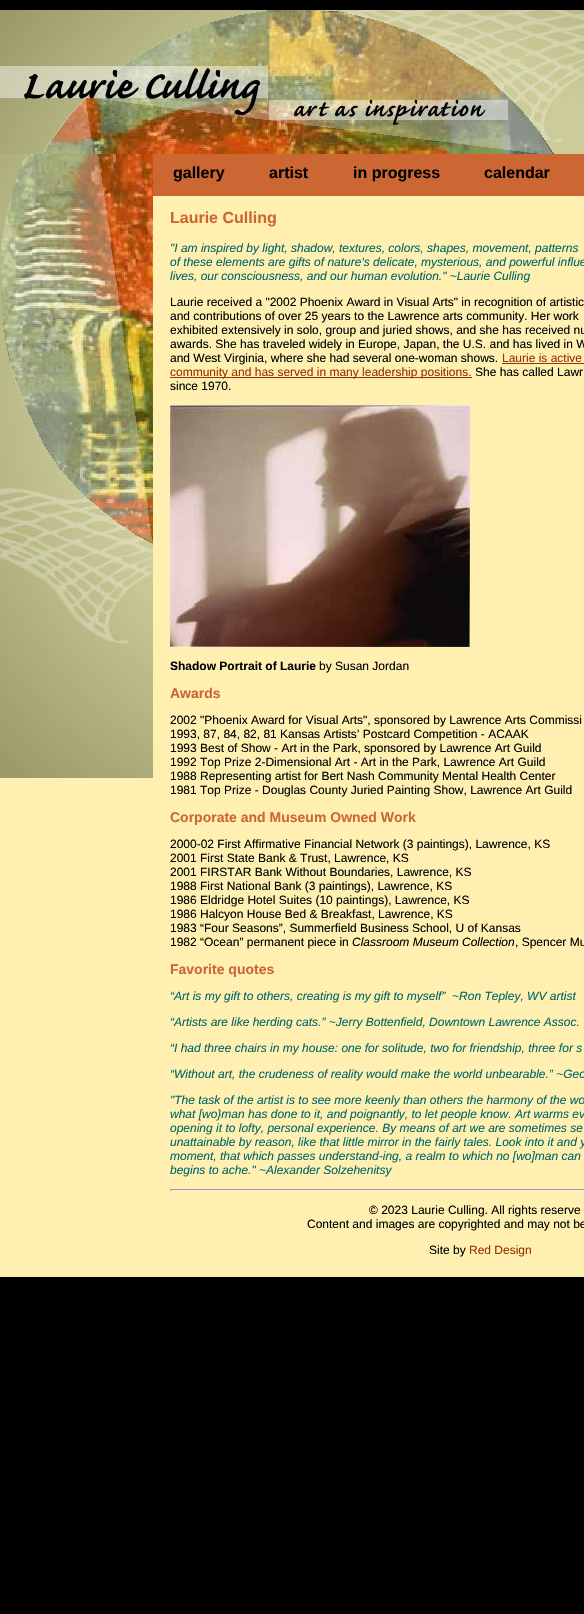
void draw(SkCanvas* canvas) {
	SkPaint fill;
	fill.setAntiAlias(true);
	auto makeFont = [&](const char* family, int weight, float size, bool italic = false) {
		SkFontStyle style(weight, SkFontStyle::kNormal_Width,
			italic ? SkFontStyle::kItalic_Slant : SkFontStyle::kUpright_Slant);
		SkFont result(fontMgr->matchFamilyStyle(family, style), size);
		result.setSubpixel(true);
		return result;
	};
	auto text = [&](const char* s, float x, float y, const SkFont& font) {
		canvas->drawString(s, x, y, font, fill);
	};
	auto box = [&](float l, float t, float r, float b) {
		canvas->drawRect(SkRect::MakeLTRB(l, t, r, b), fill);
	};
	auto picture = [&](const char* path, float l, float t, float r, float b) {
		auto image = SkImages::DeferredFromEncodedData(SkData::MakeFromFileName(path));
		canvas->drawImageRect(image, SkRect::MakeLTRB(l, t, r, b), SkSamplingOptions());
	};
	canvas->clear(0xFF000000);
	picture("image0.png", 0, 10, 552, 154);
	picture("image1.png", 552, 10, 584, 154);
	fill.setColor(0xFFFFF0B1);
	box(0, 196, 584, 1277);
	picture("image2.png", 0, 154, 153, 778);
	fill.setColor(0xFFCC6633);
	box(153, 154, 584, 196);
	fill.setColor(0xFF993300);
	box(502, 363, 584, 364);
	box(170, 377, 472, 378);
	picture("image3.png", 170, 405, 470, 647);
	fill.setColor(0xFF9F9F9F);
	box(170, 1189, 584, 1190);
	fill.setColor(0xFFEEEEEE);
	box(170, 1190, 584, 1191);
	fill.setColor(0xFF9F9F9F);
	box(170, 1189, 171, 1191);
	auto font1 = makeFont("Liberation Sans", 700, 16);
	fill.setColor(0xFF000000);
	text("gallery", 173, 178, font1);
	text("artist", 269, 178, font1);
	text("in progress", 353, 178, font1);
	text("calendar", 484, 178, font1);
	fill.setColor(0xFFCC6633);
	text("Laurie Culling", 170, 223, font1);
	auto font2 = makeFont("Liberation Sans", 400, 12, true);
	fill.setColor(0xFF006666);
	text("\"I am inspired by light, shadow, textures, colors, shapes, movement, patterns", 170, 252, font2);
	text("of these elements are gifts of nature's delicate, mysterious, and powerful influe", 170, 266, font2);
	text("lives, our consciousness, and our human evolution.\" ~Laurie Culling", 170, 280, font2);
	auto font3 = makeFont("Liberation Sans", 400, 12);
	fill.setColor(0xFF000000);
	text("Laurie received a \"2002 Phoenix Award in Visual Arts\" in recognition of artistic", 170, 306, font3);
	text("and contributions of over 25 years to the Lawrence arts community. Her work", 170, 320, font3);
	text("exhibited extensively in solo, group and juried shows, and she has received nu", 170, 334, font3);
	text("awards. She has traveled widely in Europe, Japan, the U.S. and has lived in W", 170, 348, font3);
	text("and West Virginia, where she had several one-woman shows.", 170, 362, font3);
	fill.setColor(0xFF993300);
	text("Laurie is active", 502, 362, font3);
	text("community and has served in many leadership positions.", 170, 376, font3);
	fill.setColor(0xFF000000);
	text("She has called Lawr", 475, 376, font3);
	text("since 1970.", 170, 390, font3);
	auto font4 = makeFont("Liberation Sans", 700, 12);
	text("Shadow Portrait of Laurie", 170, 670, font4);
	text("by Susan Jordan", 319, 670, font3);
	auto font5 = makeFont("Liberation Sans", 700, 14);
	fill.setColor(0xFFCC6633);
	text("Awards", 170, 698, font5);
	fill.setColor(0xFF000000);
	text("2002 \"Phoenix Award for Visual Arts\", sponsored by Lawrence Arts Commissi", 170, 724, font3);
	text("1993, 87, 84, 82, 81 Kansas Artists’ Postcard Competition - ACAAK", 170, 738, font3);
	text("1993 Best of Show - Art in the Park, sponsored by Lawrence Art Guild", 170, 752, font3);
	text("1992 Top Prize 2-Dimensional Art - Art in the Park, Lawrence Art Guild", 170, 766, font3);
	text("1988 Representing artist for Bert Nash Community Mental Health Center", 170, 780, font3);
	text("1981 Top Prize - Douglas County Juried Painting Show, Lawrence Art Guild", 170, 794, font3);
	fill.setColor(0xFFCC6633);
	text("Corporate and Museum Owned Work", 170, 822, font5);
	fill.setColor(0xFF000000);
	text("2000-02 First Affirmative Financial Network (3 paintings), Lawrence, KS", 170, 848, font3);
	text("2001 First State Bank & Trust, Lawrence, KS", 170, 862, font3);
	text("2001 FIRSTAR Bank Without Boundaries, Lawrence, KS", 170, 876, font3);
	text("1988 First National Bank (3 paintings), Lawrence, KS", 170, 890, font3);
	text("1986 Eldridge Hotel Suites (10 paintings), Lawrence, KS", 170, 904, font3);
	text("1986 Halcyon House Bed & Breakfast, Lawrence, KS", 170, 918, font3);
	text("1983 “Four Seasons”, Summerfield Business School, U of Kansas", 170, 932, font3);
	text("1982 “Ocean” permanent piece in", 170, 946, font3);
	text("Classroom Museum Collection", 352, 946, font2);
	text(", Spencer Mu", 515, 946, font3);
	fill.setColor(0xFFCC6633);
	text("Favorite quotes", 170, 974, font5);
	fill.setColor(0xFF006666);
	text("“Art is my gift to others, creating is my gift to myself”  ~Ron Tepley, WV artist", 170, 1000, font2);
	text("“Artists are like herding cats.” ~Jerry Bottenfield, Downtown Lawrence Assoc.", 170, 1026, font2);
	text("“I had three chairs in my house: one for solitude, two for friendship, three for s", 170, 1052, font2);
	text("“Without art, the crudeness of reality would make the world unbearable.” ~Geo", 170, 1078, font2);
	text("\"The task of the artist is to see more keenly than others the harmony of the wo", 170, 1104, font2);
	text("what [wo}man has done to it, and poignantly, to let people know. Art warms ev", 170, 1118, font2);
	text("opening it to lofty, personal experience. By means of art we are sometimes se", 170, 1132, font2);
	text("unattainable by reason, like that little mirror in the fairly tales. Look into it and y", 170, 1146, font2);
	text("moment, that which passes understand-ing, a realm to which no [wo]man can", 170, 1160, font2);
	text("begins to ache.\" ~Alexander Solzehenitsy", 170, 1174, font2);
	fill.setColor(0xFF000000);
	text("© 2023 Laurie Culling. All rights reserve", 369, 1214, font3);
	text("Content and images are copyrighted and may not be", 307, 1228, font3);
	text("Site by", 429, 1254, font3);
	fill.setColor(0xFF993300);
	text("Red Design", 469, 1254, font3);
}
